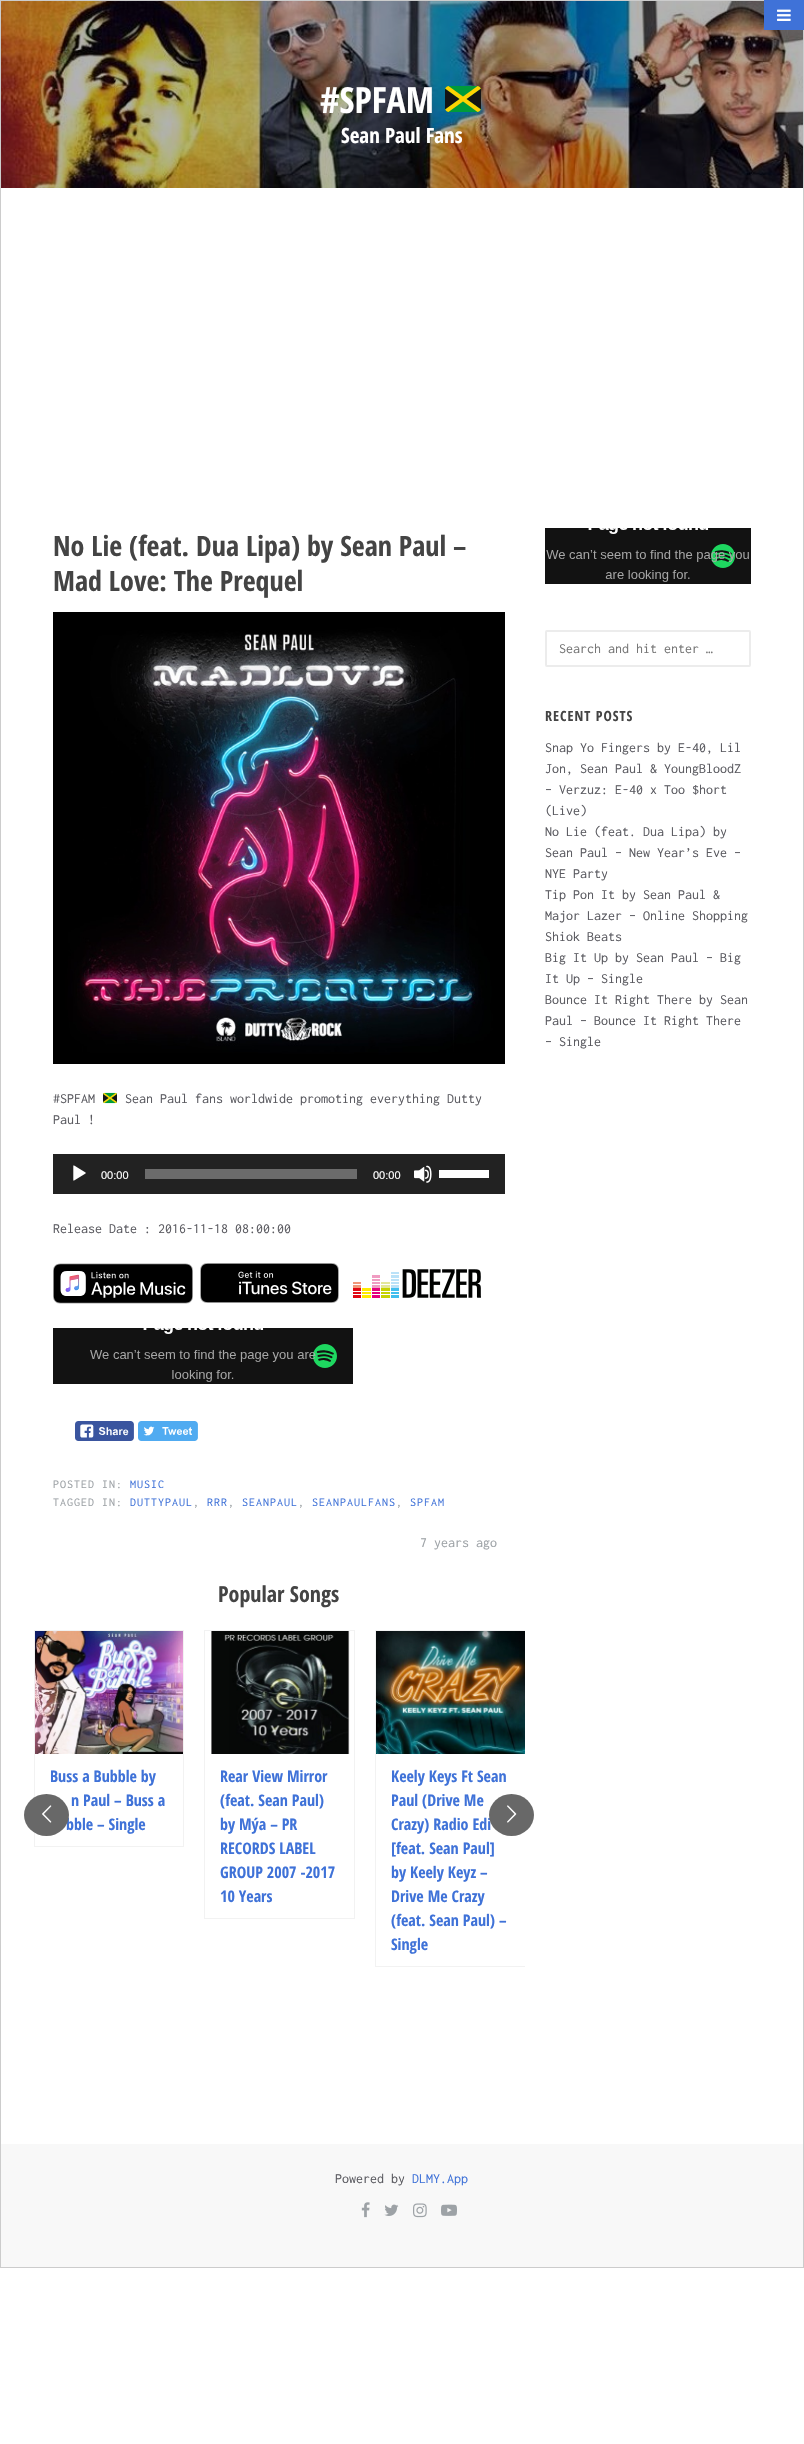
void draw(SkCanvas* canvas) {
	SkPaint fill;
	fill.setAntiAlias(true);
	auto makeFont = [&](const char* family, int weight, float size, bool italic = false) {
		SkFontStyle style(weight, SkFontStyle::kNormal_Width,
			italic ? SkFontStyle::kItalic_Slant : SkFontStyle::kUpright_Slant);
		SkFont result(fontMgr->matchFamilyStyle(family, style), size);
		result.setSubpixel(true);
		return result;
	};
	auto text = [&](const char* s, float x, float y, const SkFont& font) {
		canvas->drawString(s, x, y, font, fill);
	};
	auto spacedText = [&](const char* s, float x, float y, const SkFont& font, const SkPaint& ink, float letter, float word) {
		std::vector<SkGlyphID> glyphs(font.countText(s, strlen(s), SkTextEncoding::kUTF8));
		std::vector<float> xs(glyphs.size());
		font.textToGlyphs(s, strlen(s), SkTextEncoding::kUTF8, glyphs);
		font.getXPos(glyphs, xs, x);
		float extra = 0;
		for (size_t i = 0; i < glyphs.size(); i++) {
			xs[i] += extra;
			extra += letter + word * (glyphs[i] == font.unicharToGlyph(' '));
		}
		canvas->drawTextBlob(SkTextBlob::MakeFromPosHGlyphs(glyphs, xs, y, font), 0, 0, ink);
	};
	auto box = [&](float l, float t, float r, float b) {
		canvas->drawRect(SkRect::MakeLTRB(l, t, r, b), fill);
	};
	auto picture = [&](const char* path, float l, float t, float r, float b) {
		auto image = SkImages::DeferredFromEncodedData(SkData::MakeFromFileName(path));
		canvas->drawImageRect(image, SkRect::MakeLTRB(l, t, r, b), SkSamplingOptions());
	};
	canvas->clear(0xFFFFFFFF);
	fill.setStyle(SkPaint::kStroke_Style);
	fill.setStrokeWidth(1);
	fill.setColor(0xFFCCCCCC);
	canvas->drawRect(SkRect::MakeLTRB(0.5f, 0.5f, 803.5f, 2267.5f), fill);
	picture("image1.png", 1, 1, 803, 188);
	fill.setStyle(SkPaint::kFill_Style);
	fill.setColor(0xFF3F72D8);
	box(764, 0, 804, 30);
	picture("image0.png", 777, 9, 791, 21);
	picture("image2.png", 445, 86, 481, 112);
	picture("image3.png", 53, 612, 505, 1064);
	picture("image4.png", 103, 1092, 117, 1104);
	fill.setColor(0xFF222222);
	box(53, 1154, 505, 1194);
	picture("image5.png", 73, 1165, 86, 1181);
	fill.setColor(0xFF6B6B6B);
	box(145, 1169, 357, 1179);
	picture("image6.png", 414, 1165, 432, 1183);
	fill.setColor(0xFFFFFFFF);
	box(439, 1170, 489, 1178);
	picture("image7.png", 53, 1263, 193, 1304);
	picture("image8.png", 200, 1263, 339, 1303);
	picture("image9.png", 353, 1269, 481, 1298);
	picture("image10.png", 53, 1328, 353, 1384);
	picture("image11.png", 75, 1421, 134, 1441);
	picture("image12.png", 138, 1421, 198, 1441);
	fill.setStyle(SkPaint::kStroke_Style);
	fill.setColor(0xFFF2F2F2);
	canvas->drawRect(SkRect::MakeLTRB(34.5f, 1630.5f, 183.5f, 1846.5f), fill);
	picture("image14.png", 35, 1631, 183, 1754);
	canvas->drawRect(SkRect::MakeLTRB(204.5f, 1630.5f, 354.5f, 1918.5f), fill);
	picture("image15.png", 211, 1631, 350, 1754);
	canvas->save();
	canvas->clipRect(SkRect::MakeLTRB(33, 1630, 525, 2039));
	canvas->drawRect(SkRect::MakeLTRB(375.5f, 1630.5f, 525.5f, 1966.5f), fill);
	canvas->restore();
	picture("image16.png", 376, 1631, 525, 1754);
	picture("image18.png", 545, 528, 751, 584);
	fill.setStrokeWidth(2);
	fill.setColor(0xFFECECEC);
	canvas->drawRoundRect(SkRect::MakeLTRB(546, 631, 750, 666), 1, 1, fill);
	fill.setStyle(SkPaint::kFill_Style);
	fill.setColor(0xFFF8F8F8);
	box(1, 2144, 803, 2267);
	picture("image19.png", 361, 2202, 370, 2218);
	picture("image20.png", 384, 2204, 399, 2216);
	picture("image21.png", 413, 2203, 427, 2218);
	picture("image22.png", 441, 2204, 457, 2216);
	auto font1 = makeFont("Open Sans Condensed", 700, 36);
	fill.setColor(0xFFFFFFFF);
	text("#SPFAM", 320, 113, font1);
	auto font2 = makeFont("Open Sans Condensed", 700, 21);
	text("Sean Paul Fans", 341, 143, font2);
	auto font3 = makeFont("Open Sans Condensed", 700, 28);
	fill.setColor(0xFF444444);
	text("No Lie (feat. Dua Lipa) by Sean Paul –", 53, 556, font3);
	text("Mad Love: The Prequel", 53, 591, font3);
	auto font4 = makeFont("Inconsolata", 400, 14);
	fill.setColor(0xFF5A5A60);
	text("#SPFAM", 53, 1103, font4);
	text("Sean Paul fans worldwide promoting everything Dutty", 125, 1103, font4);
	text("Paul !", 53, 1124, font4);
	auto font5 = makeFont("Liberation Sans", 400, 11);
	fill.setColor(0xFFFFFFFF);
	text("00:00", 101, 1179, font5);
	text("00:00", 373, 1179, font5);
	fill.setColor(0xFF5A5A60);
	text("Release Date : 2016-11-18 08:00:00", 53, 1233, font4);
	auto font6 = makeFont("Inconsolata", 400, 12);
	fill.setColor(0xFF9DA2A6);
	spacedText("POSTED IN:", 53, 1488, font6, fill, 1, 0);
	fill.setColor(0xFF3F72D8);
	spacedText("MUSIC", 130, 1488, font6, fill, 1, 0);
	fill.setColor(0xFF9DA2A6);
	spacedText("TAGGED IN:", 53, 1506, font6, fill, 1, 0);
	fill.setColor(0xFF3F72D8);
	spacedText("DUTTYPAUL", 130, 1506, font6, fill, 1, 0);
	fill.setColor(0xFF9DA2A6);
	spacedText(",", 193, 1506, font6, fill, 1, 0);
	fill.setColor(0xFF3F72D8);
	spacedText("RRR", 207, 1506, font6, fill, 1, 0);
	fill.setColor(0xFF9DA2A6);
	spacedText(",", 228, 1506, font6, fill, 1, 0);
	fill.setColor(0xFF3F72D8);
	spacedText("SEANPAUL", 242, 1506, font6, fill, 1, 0);
	fill.setColor(0xFF9DA2A6);
	spacedText(",", 298, 1506, font6, fill, 1, 0);
	fill.setColor(0xFF3F72D8);
	spacedText("SEANPAULFANS", 312, 1506, font6, fill, 1, 0);
	fill.setColor(0xFF9DA2A6);
	spacedText(",", 396, 1506, font6, fill, 1, 0);
	fill.setColor(0xFF3F72D8);
	spacedText("SPFAM", 410, 1506, font6, fill, 1, 0);
	fill.setColor(0xFF9DA2A6);
	text("7 years ago", 420, 1547, font4);
	auto font7 = makeFont("Open Sans Condensed", 700, 22);
	fill.setColor(0xFF444444);
	text("Popular Songs", 218, 1602, font7);
	auto font8 = makeFont("Open Sans Condensed", 700, 16);
	fill.setColor(0xFF3F72D8);
	text("Buss a Bubble by", 50, 1782, font8);
	text("n Paul – Buss a", 71, 1806, font8);
	text("bble – Single", 66, 1830, font8);
	fill.setColor(0xFF686868);
	canvas->drawOval(SkRect::MakeLTRB(24, 1794, 69, 1836), fill);
	picture("image13.png", 42, 1805, 52, 1823);
	fill.setColor(0xFF3F72D8);
	text("Rear View Mirror", 220, 1782, font8);
	text("(feat. Sean Paul)", 220, 1806, font8);
	text("by Mýa – PR", 220, 1830, font8);
	text("RECORDS LABEL", 220, 1854, font8);
	text("GROUP 2007 -2017", 220, 1878, font8);
	text("10 Years", 220, 1902, font8);
	text("Keely Keys Ft Sean", 391, 1782, font8);
	text("Paul (Drive Me", 391, 1806, font8);
	text("Crazy) Radio Edi", 391, 1830, font8);
	text("[feat. Sean Paul]", 391, 1854, font8);
	text("by Keely Keyz –", 391, 1878, font8);
	text("Drive Me Crazy", 391, 1902, font8);
	text("(feat. Sean Paul) –", 391, 1926, font8);
	text("Single", 391, 1950, font8);
	fill.setColor(0xFF686868);
	canvas->drawOval(SkRect::MakeLTRB(489, 1794, 534, 1836), fill);
	picture("image17.png", 507, 1805, 517, 1823);
	fill.setColor(0xFF757575);
	text("Search and hit enter …", 559, 653, font4);
	auto font9 = makeFont("Open Sans Condensed", 700, 14);
	fill.setColor(0xFF444444);
	spacedText("RECENT POSTS", 545, 721, font9, fill, 1, 0);
	fill.setColor(0xFF5A5A60);
	text("Snap Yo Fingers by E-40, Lil", 545, 752, font4);
	text("Jon, Sean Paul & YoungBloodZ", 545, 773, font4);
	text("– Verzuz: E-40 x Too $hort", 545, 794, font4);
	text("(Live)", 545, 815, font4);
	text("No Lie (feat. Dua Lipa) by", 545, 836, font4);
	text("Sean Paul – New Year’s Eve –", 545, 857, font4);
	text("NYE Party", 545, 878, font4);
	text("Tip Pon It by Sean Paul &", 545, 899, font4);
	text("Major Lazer – Online Shopping", 545, 920, font4);
	text("Shiok Beats", 545, 941, font4);
	text("Big It Up by Sean Paul – Big", 545, 962, font4);
	text("It Up – Single", 545, 983, font4);
	text("Bounce It Right There by Sean", 545, 1004, font4);
	text("Paul – Bounce It Right There", 545, 1025, font4);
	text("– Single", 545, 1046, font4);
	text("Powered by", 335, 2183, font4);
	fill.setColor(0xFF3F72D8);
	text("DLMY.App", 412, 2183, font4);
}
